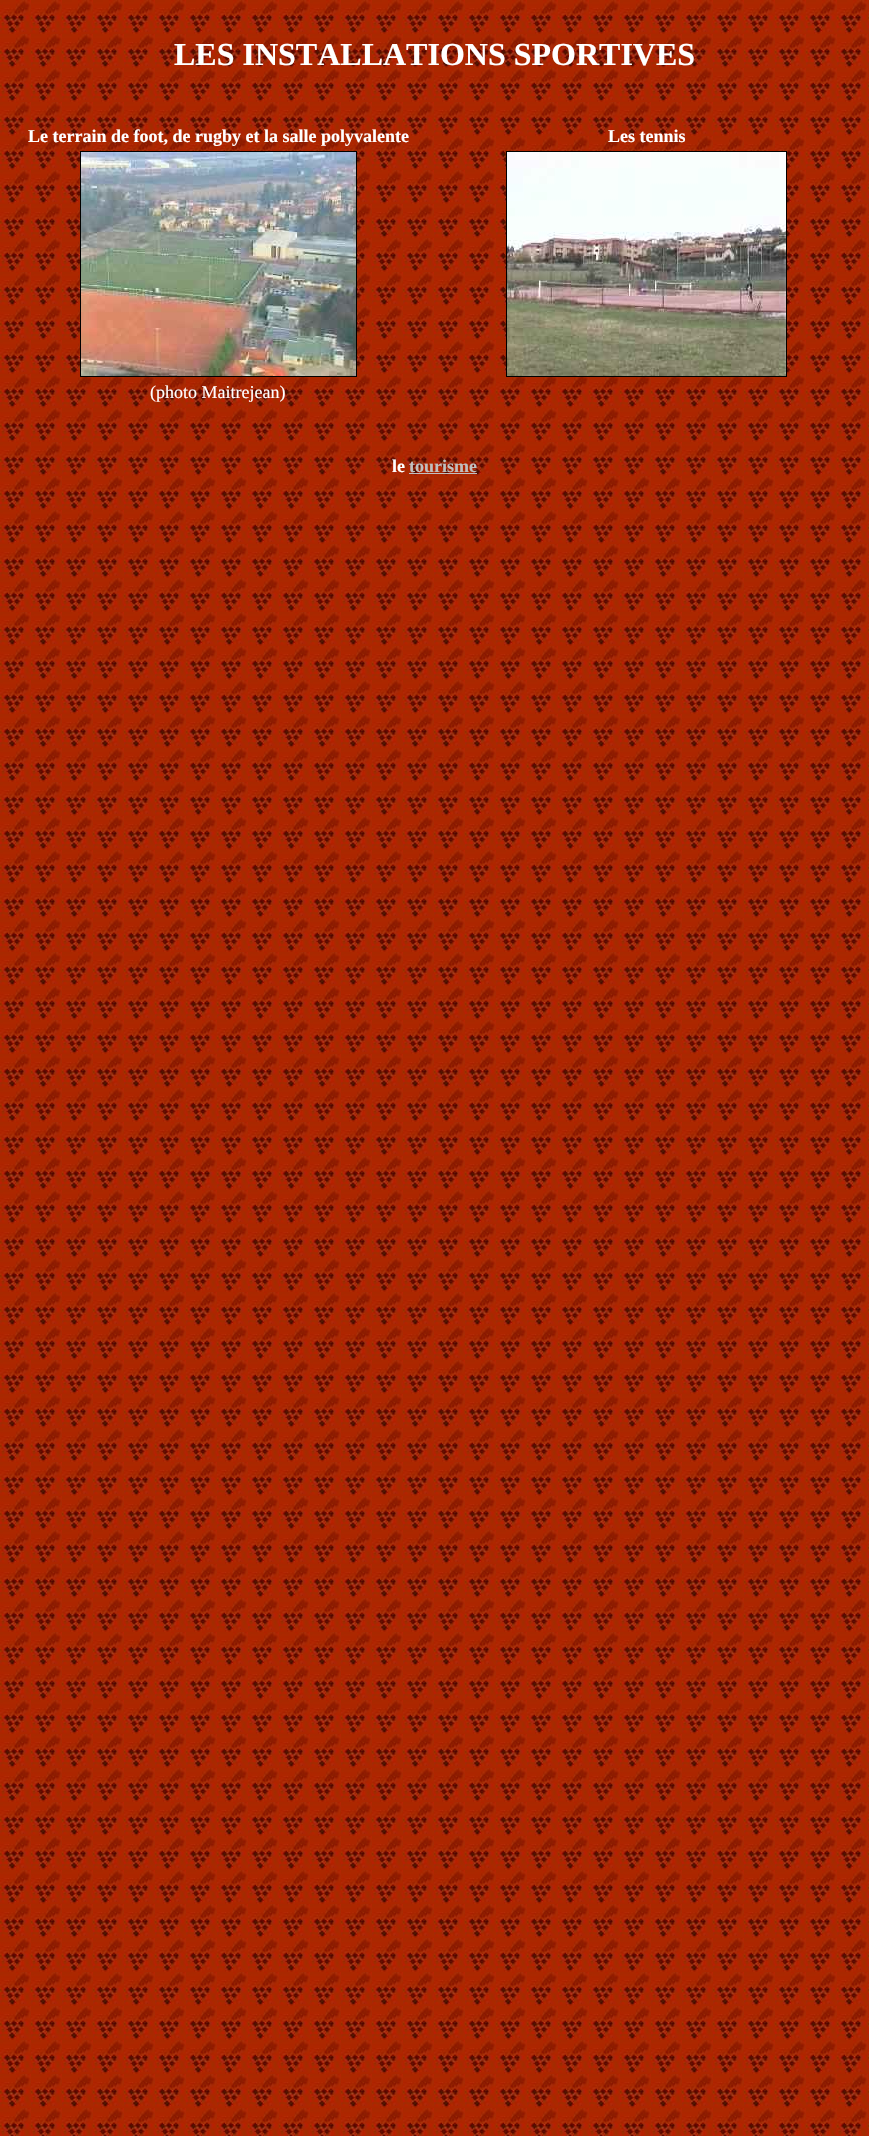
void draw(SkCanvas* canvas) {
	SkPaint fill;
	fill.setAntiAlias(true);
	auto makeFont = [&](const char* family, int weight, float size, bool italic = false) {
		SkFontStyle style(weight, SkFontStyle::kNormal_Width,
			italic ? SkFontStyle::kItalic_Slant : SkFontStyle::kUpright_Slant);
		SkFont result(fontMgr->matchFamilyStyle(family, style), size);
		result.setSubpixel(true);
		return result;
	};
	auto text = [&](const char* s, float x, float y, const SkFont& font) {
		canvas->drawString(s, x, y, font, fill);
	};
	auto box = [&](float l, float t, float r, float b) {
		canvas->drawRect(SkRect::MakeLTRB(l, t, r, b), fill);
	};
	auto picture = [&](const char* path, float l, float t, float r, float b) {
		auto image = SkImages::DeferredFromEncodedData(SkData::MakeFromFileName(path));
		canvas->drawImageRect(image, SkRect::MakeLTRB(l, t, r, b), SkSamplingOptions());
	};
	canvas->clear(0xFFFFFFFF);
	picture("image0.png", 0, 0, 869, 2136);
	fill.setStyle(SkPaint::kStroke_Style);
	fill.setStrokeWidth(1);
	fill.setColor(0xFF000000);
	canvas->drawRect(SkRect::MakeLTRB(506.5f, 151.5f, 786.5f, 376.5f), fill);
	picture("image1.png", 507, 152, 786, 376);
	canvas->drawRect(SkRect::MakeLTRB(80.5f, 151.5f, 356.5f, 376.5f), fill);
	picture("image2.png", 81, 152, 356, 376);
	fill.setStyle(SkPaint::kFill_Style);
	fill.setColor(0xFFC0C0C0);
	box(409, 473, 477, 474);
	auto font1 = makeFont("Liberation Serif", 700, 32);
	fill.setColor(0xFFFFFFFF);
	text("LES INSTALLATIONS SPORTIVES", 174, 65, font1);
	auto font2 = makeFont("Liberation Serif", 700, 18);
	text("Le terrain de foot, de rugby et la salle polyvalente", 28, 142, font2);
	text("Les tennis", 608, 142, font2);
	auto font3 = makeFont("Liberation Serif", 400, 18);
	text("(photo Maitrejean)", 150, 398, font3);
	text("le", 392, 472, font2);
	fill.setColor(0xFFC0C0C0);
	text("tourisme", 409, 472, font2);
}
